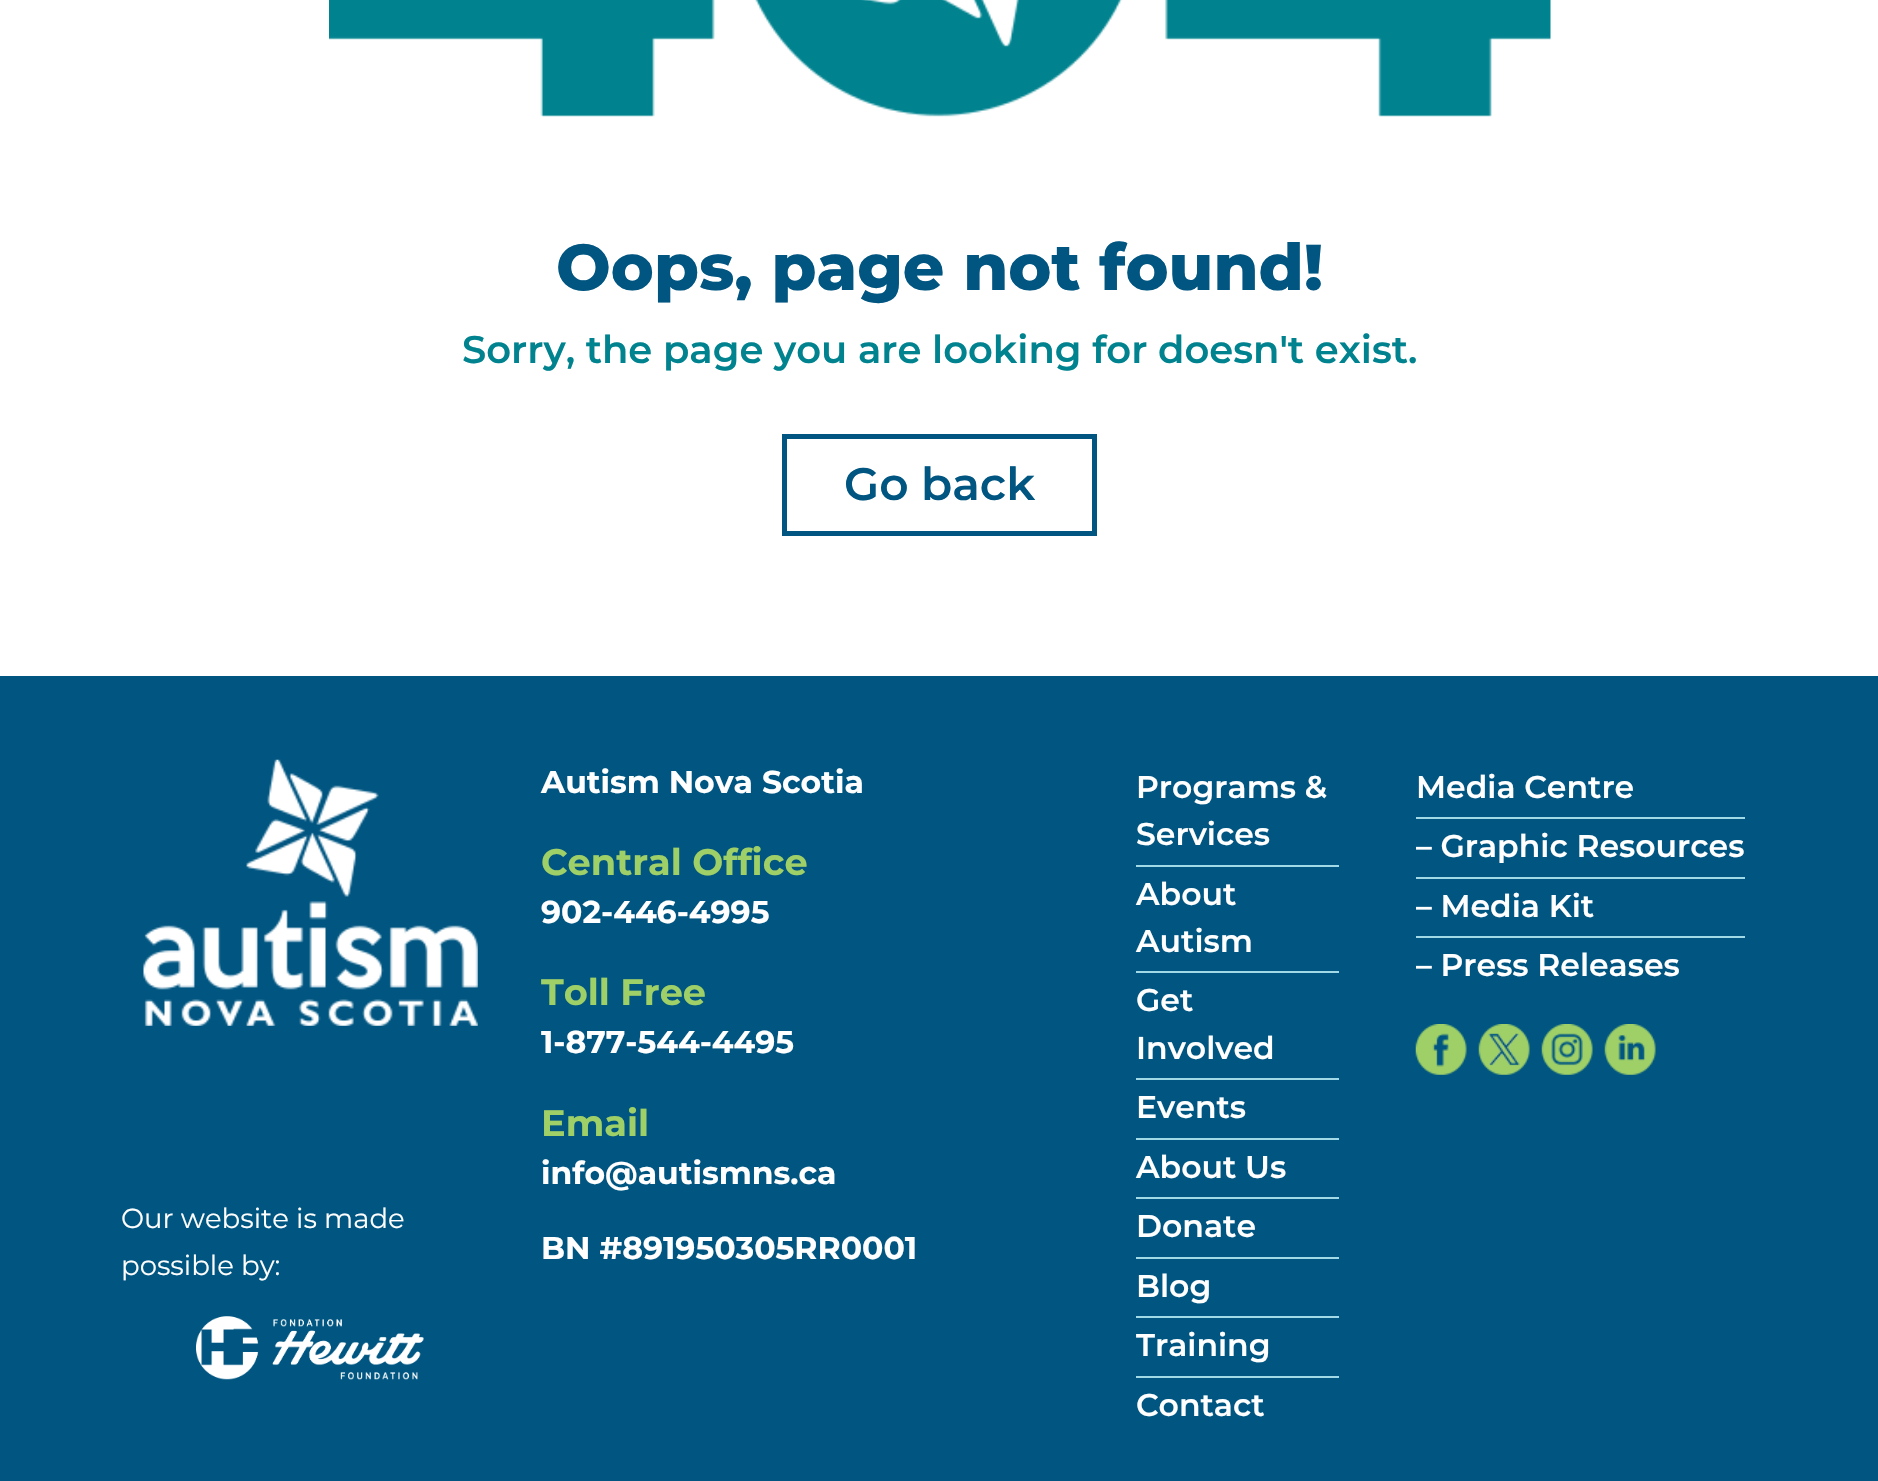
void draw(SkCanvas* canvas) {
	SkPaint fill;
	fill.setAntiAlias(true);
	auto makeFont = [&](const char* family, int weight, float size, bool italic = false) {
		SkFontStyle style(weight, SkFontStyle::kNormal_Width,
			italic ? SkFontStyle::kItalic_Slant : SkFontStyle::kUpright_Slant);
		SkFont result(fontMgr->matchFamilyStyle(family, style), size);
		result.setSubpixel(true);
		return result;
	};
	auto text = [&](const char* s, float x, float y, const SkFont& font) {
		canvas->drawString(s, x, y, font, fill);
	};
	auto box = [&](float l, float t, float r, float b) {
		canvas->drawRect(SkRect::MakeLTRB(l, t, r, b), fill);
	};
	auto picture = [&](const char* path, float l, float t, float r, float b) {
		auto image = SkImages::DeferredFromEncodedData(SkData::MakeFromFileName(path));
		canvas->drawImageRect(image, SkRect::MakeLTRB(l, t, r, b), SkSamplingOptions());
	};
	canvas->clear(0xFFFFFFFF);
	picture("image0.png", 329, 0, 1551, 117);
	fill.setStyle(SkPaint::kStroke_Style);
	fill.setStrokeWidth(5);
	fill.setColor(0xFF005581);
	canvas->drawRect(SkRect::MakeLTRB(784.5f, 436.5f, 1094.5f, 533.5f), fill);
	fill.setStyle(SkPaint::kFill_Style);
	box(0, 676, 1878, 1481);
	picture("image1.png", 143, 759, 478, 1026);
	picture("image2.png", 196, 1316, 424, 1380);
	fill.setColor(0xFFA1D9E7);
	box(1136, 865, 1339, 867);
	box(1136, 971, 1339, 973);
	box(1136, 1078, 1339, 1080);
	box(1136, 1138, 1339, 1140);
	box(1136, 1197, 1339, 1199);
	box(1136, 1257, 1339, 1259);
	box(1136, 1316, 1339, 1318);
	box(1136, 1376, 1339, 1378);
	box(1416, 817, 1745, 819);
	box(1416, 877, 1745, 879);
	box(1416, 936, 1745, 938);
	picture("image3.png", 1415, 1024, 1467, 1075);
	picture("image4.png", 1478, 1024, 1530, 1075);
	picture("image5.png", 1541, 1024, 1593, 1075);
	picture("image6.png", 1604, 1024, 1656, 1075);
	auto font1 = makeFont("Montserrat", 800, 64.75f);
	fill.setColor(0xFF005581);
	text("Oops, page not found!", 556, 290, font1);
	auto font2 = makeFont("Montserrat", 600, 38.5f);
	fill.setColor(0xFF00838F);
	text("Sorry, the page you are looking for doesn't exist.", 462, 363, font2);
	auto font3 = makeFont("Montserrat", 600, 45.5f);
	fill.setColor(0xFF005581);
	text("Go back", 844, 500, font3);
	auto font4 = makeFont("Montserrat", 400, 27.5f);
	fill.setColor(0xFFFFFFFF);
	text("Our website is made", 121, 1228, font4);
	text("possible by:", 121, 1275, font4);
	auto font5 = makeFont("Montserrat", 700, 31.5f);
	text("Autism Nova Scotia", 541, 793, font5);
	auto font6 = makeFont("Montserrat", 700, 36.75f);
	fill.setColor(0xFF9FCF67);
	text("Central Office", 541, 875, font6);
	fill.setColor(0xFFFFFFFF);
	text("902-446-4995", 541, 923, font5);
	fill.setColor(0xFF9FCF67);
	text("Toll Free", 541, 1005, font6);
	fill.setColor(0xFFFFFFFF);
	text("1-877-544-4495", 541, 1053, font5);
	fill.setColor(0xFF9FCF67);
	text("Email", 541, 1136, font6);
	fill.setColor(0xFFFFFFFF);
	text("info@autismns.ca", 541, 1184, font5);
	text("BN #891950305RR0001", 541, 1259, font5);
	auto font7 = makeFont("Montserrat", 600, 31.5f);
	text("Programs &", 1136, 798, font7);
	text("Services", 1136, 845, font7);
	text("About", 1136, 905, font7);
	text("Autism", 1136, 952, font7);
	text("Get", 1136, 1011, font7);
	text("Involved", 1136, 1059, font7);
	text("Events", 1136, 1118, font7);
	text("About Us", 1136, 1178, font7);
	text("Donate", 1136, 1237, font7);
	text("Blog", 1136, 1297, font7);
	text("Training", 1136, 1356, font7);
	text("Contact", 1136, 1416, font7);
	text("Media Centre", 1416, 798, font7);
	text("– Graphic Resources", 1416, 857, font7);
	text("– Media Kit", 1416, 917, font7);
	text("– Press Releases", 1416, 976, font7);
}
